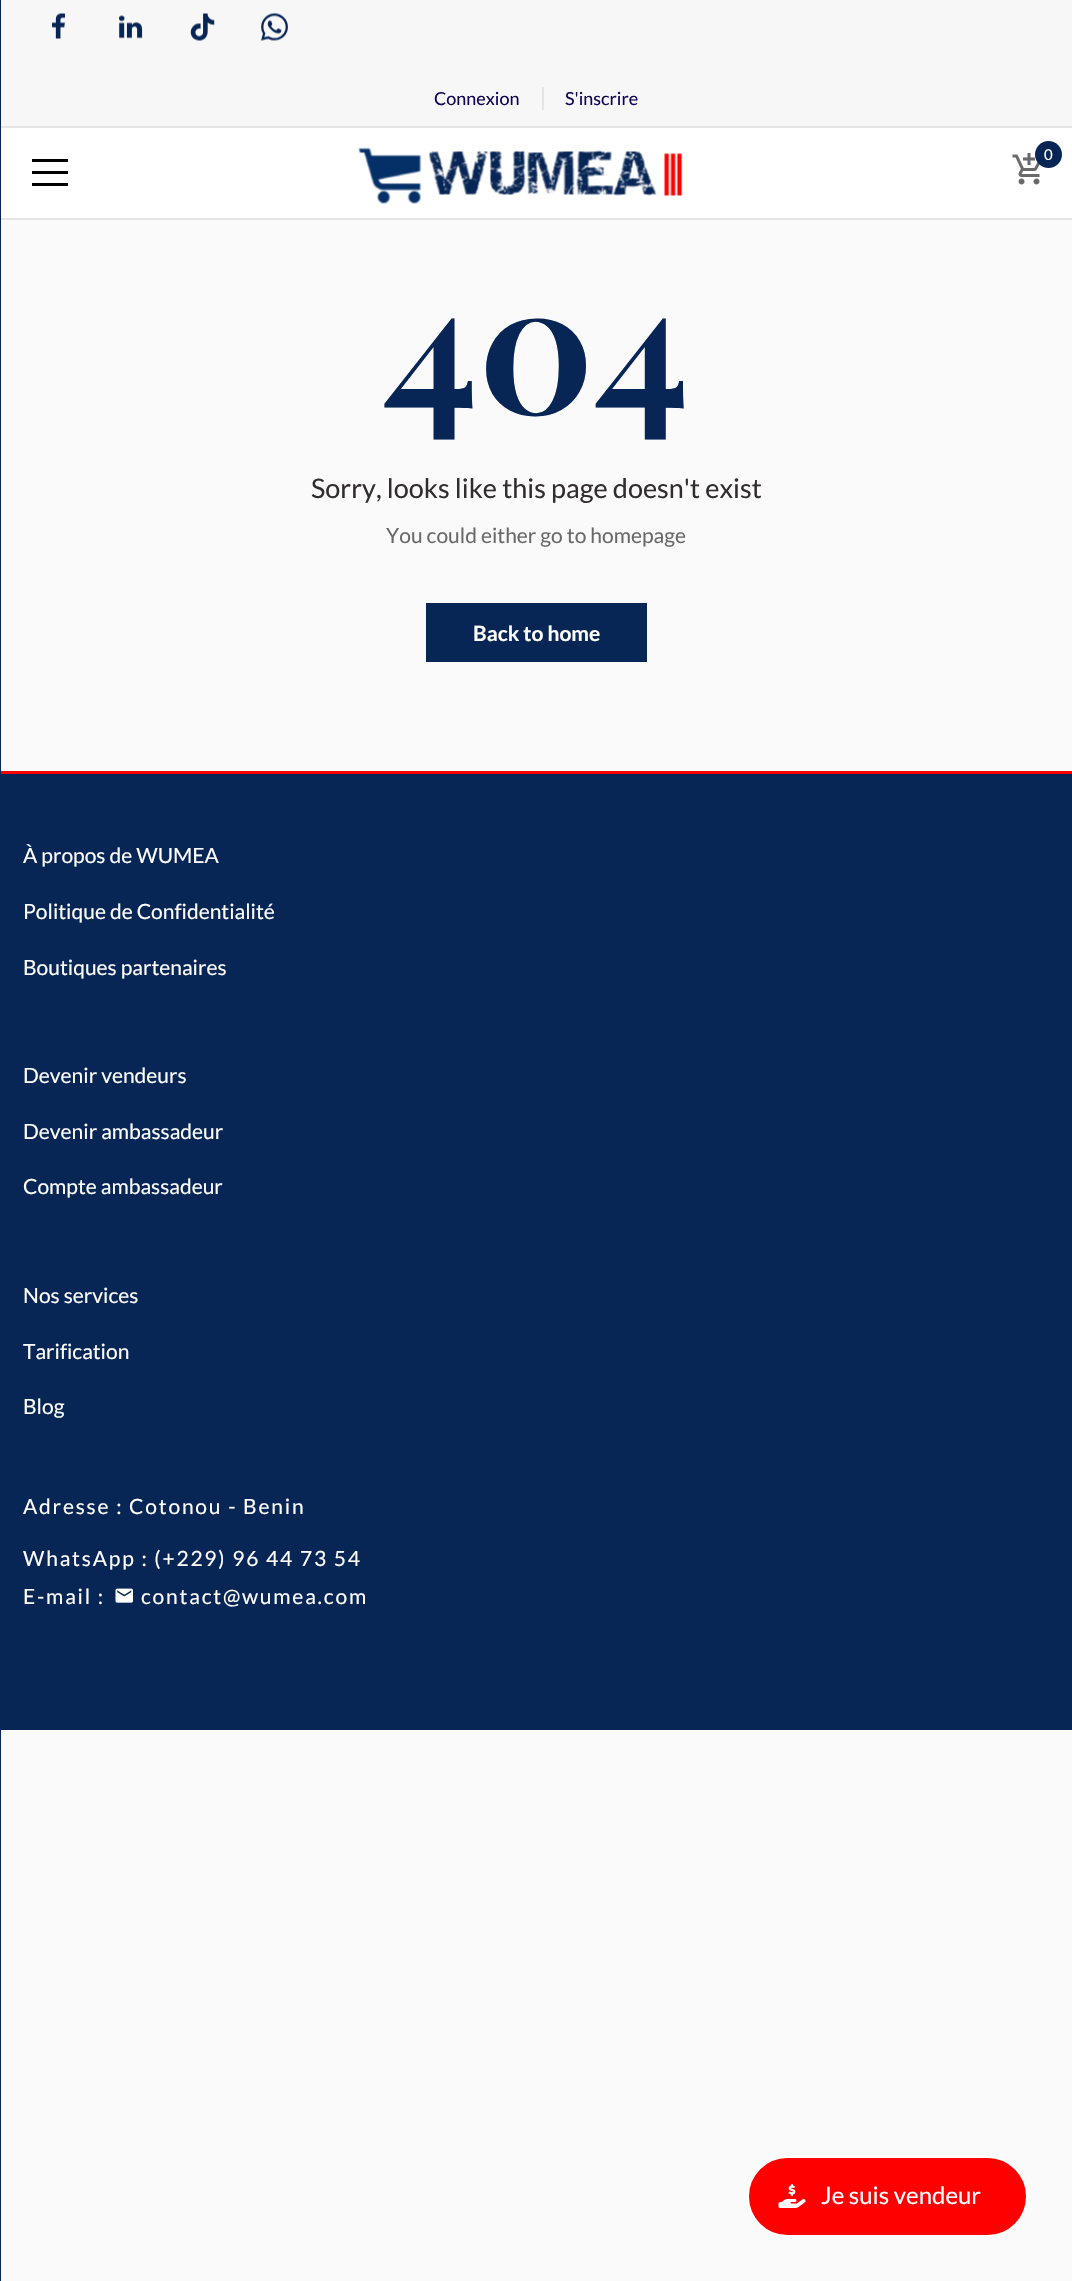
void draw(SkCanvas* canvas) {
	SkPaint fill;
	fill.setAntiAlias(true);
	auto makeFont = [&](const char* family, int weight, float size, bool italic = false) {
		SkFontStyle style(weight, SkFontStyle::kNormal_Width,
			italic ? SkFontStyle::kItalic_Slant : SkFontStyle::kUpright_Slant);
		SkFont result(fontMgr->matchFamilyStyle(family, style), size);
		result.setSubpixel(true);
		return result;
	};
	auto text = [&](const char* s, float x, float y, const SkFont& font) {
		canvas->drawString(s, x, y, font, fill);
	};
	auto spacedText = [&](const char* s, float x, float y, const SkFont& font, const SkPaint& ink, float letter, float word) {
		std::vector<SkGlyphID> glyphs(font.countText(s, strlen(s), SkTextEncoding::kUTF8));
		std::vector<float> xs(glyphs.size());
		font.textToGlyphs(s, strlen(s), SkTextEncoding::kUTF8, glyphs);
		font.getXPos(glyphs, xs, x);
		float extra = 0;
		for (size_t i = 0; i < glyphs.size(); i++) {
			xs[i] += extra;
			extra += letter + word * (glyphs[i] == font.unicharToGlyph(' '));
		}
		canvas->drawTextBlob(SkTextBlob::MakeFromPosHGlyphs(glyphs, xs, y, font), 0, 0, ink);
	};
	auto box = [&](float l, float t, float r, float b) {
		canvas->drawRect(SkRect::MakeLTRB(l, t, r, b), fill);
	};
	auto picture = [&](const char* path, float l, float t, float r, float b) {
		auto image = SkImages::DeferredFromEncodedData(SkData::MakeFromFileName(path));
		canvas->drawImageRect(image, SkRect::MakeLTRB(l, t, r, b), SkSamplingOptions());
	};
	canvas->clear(0xFFFAFAFA);
	fill.setColor(0xFFF7F7F7);
	box(1, 0, 1072, 126);
	fill.setColor(0xFFE5E5E5);
	box(0, 126, 1072, 128);
	picture("image0.png", 52, 13, 65, 39);
	picture("image1.png", 119, 15, 143, 39);
	picture("image2.png", 190, 13, 215, 41);
	picture("image3.png", 261, 13, 288, 41);
	box(542, 87, 544, 110);
	box(0, 218, 1072, 220);
	fill.setColor(0xFFFFFFFF);
	box(1, 128, 1072, 218);
	fill.setColor(0xFFFF0000);
	box(0, 771, 1072, 774);
	fill.setColor(0xFF082655);
	box(0, 0, 1, 2281);
	picture("image4.png", 358, 147, 683, 204);
	picture("image5.png", 1012, 153, 1040, 185);
	canvas->drawCircle(1048.5f, 154.5f, 13.5f, fill);
	fill.setColor(0xFF000000);
	box(32, 159, 68, 162);
	box(32, 171, 68, 174);
	box(32, 183, 68, 186);
	fill.setColor(0xFF082655);
	box(426, 603, 647, 662);
	box(1, 774, 1072, 1730);
	picture("image6.png", 115, 1588, 133, 1603);
	fill.setColor(0xFFFF0000);
	canvas->drawRoundRect(SkRect::MakeLTRB(748, 2157, 1027, 2236), 39.5f, 39.5f, fill);
	fill.setStyle(SkPaint::kStroke_Style);
	fill.setStrokeWidth(2);
	fill.setColor(0xFFFFFFFF);
	canvas->drawRoundRect(SkRect::MakeLTRB(748, 2157, 1027, 2236), 39.5f, 39.5f, fill);
	picture("image7.png", 778, 2184, 806, 2208);
	auto font1 = makeFont("Lato", 400, 18);
	fill.setStyle(SkPaint::kFill_Style);
	fill.setColor(0xFF120357);
	text("Connexion", 434, 105, font1);
	text("S'inscrire", 565, 105, font1);
	auto font2 = makeFont("Lato", 400, 15);
	fill.setColor(0xFFFFFFFF);
	text("0", 1044, 160, font2);
	auto font3 = makeFont("Playfair Display", 700, 180);
	fill.setColor(0xFF082655);
	text("404", 383, 414, font3);
	auto font4 = makeFont("Lato", 400, 27);
	fill.setColor(0xFF312D2E);
	text("Sorry, looks like this page doesn't exist", 311, 498, font4);
	auto font5 = makeFont("Lato", 400, 21);
	fill.setColor(0xFF696969);
	text("You could either go to homepage", 386, 543, font5);
	auto font6 = makeFont("Lato", 700, 21);
	fill.setColor(0xFFFFFFFF);
	text("Back to home", 473, 641, font6);
	text("À propos de WUMEA", 23, 863, font5);
	text("Politique de Confidentialité", 23, 919, font5);
	text("Boutiques partenaires", 23, 975, font5);
	text("Devenir vendeurs", 23, 1083, font5);
	text("Devenir ambassadeur", 23, 1139, font5);
	text("Compte ambassadeur", 23, 1194, font5);
	text("Nos services", 23, 1303, font5);
	text("Tarification", 23, 1359, font5);
	text("Blog", 23, 1414, font5);
	spacedText("Adresse : Cotonou - Benin", 23, 1514, font5, fill, 1.8f, 0);
	spacedText("WhatsApp : (+229) 96 44 73 54", 23, 1566, font5, fill, 1.8f, 0);
	spacedText("E-mail :", 23, 1604, font5, fill, 1.8f, 0);
	spacedText("contact@wumea.com", 141, 1604, font5, fill, 1.8f, 0);
	auto font7 = makeFont("Lato", 400, 24);
	text("Je suis vendeur", 821, 2204, font7);
}
